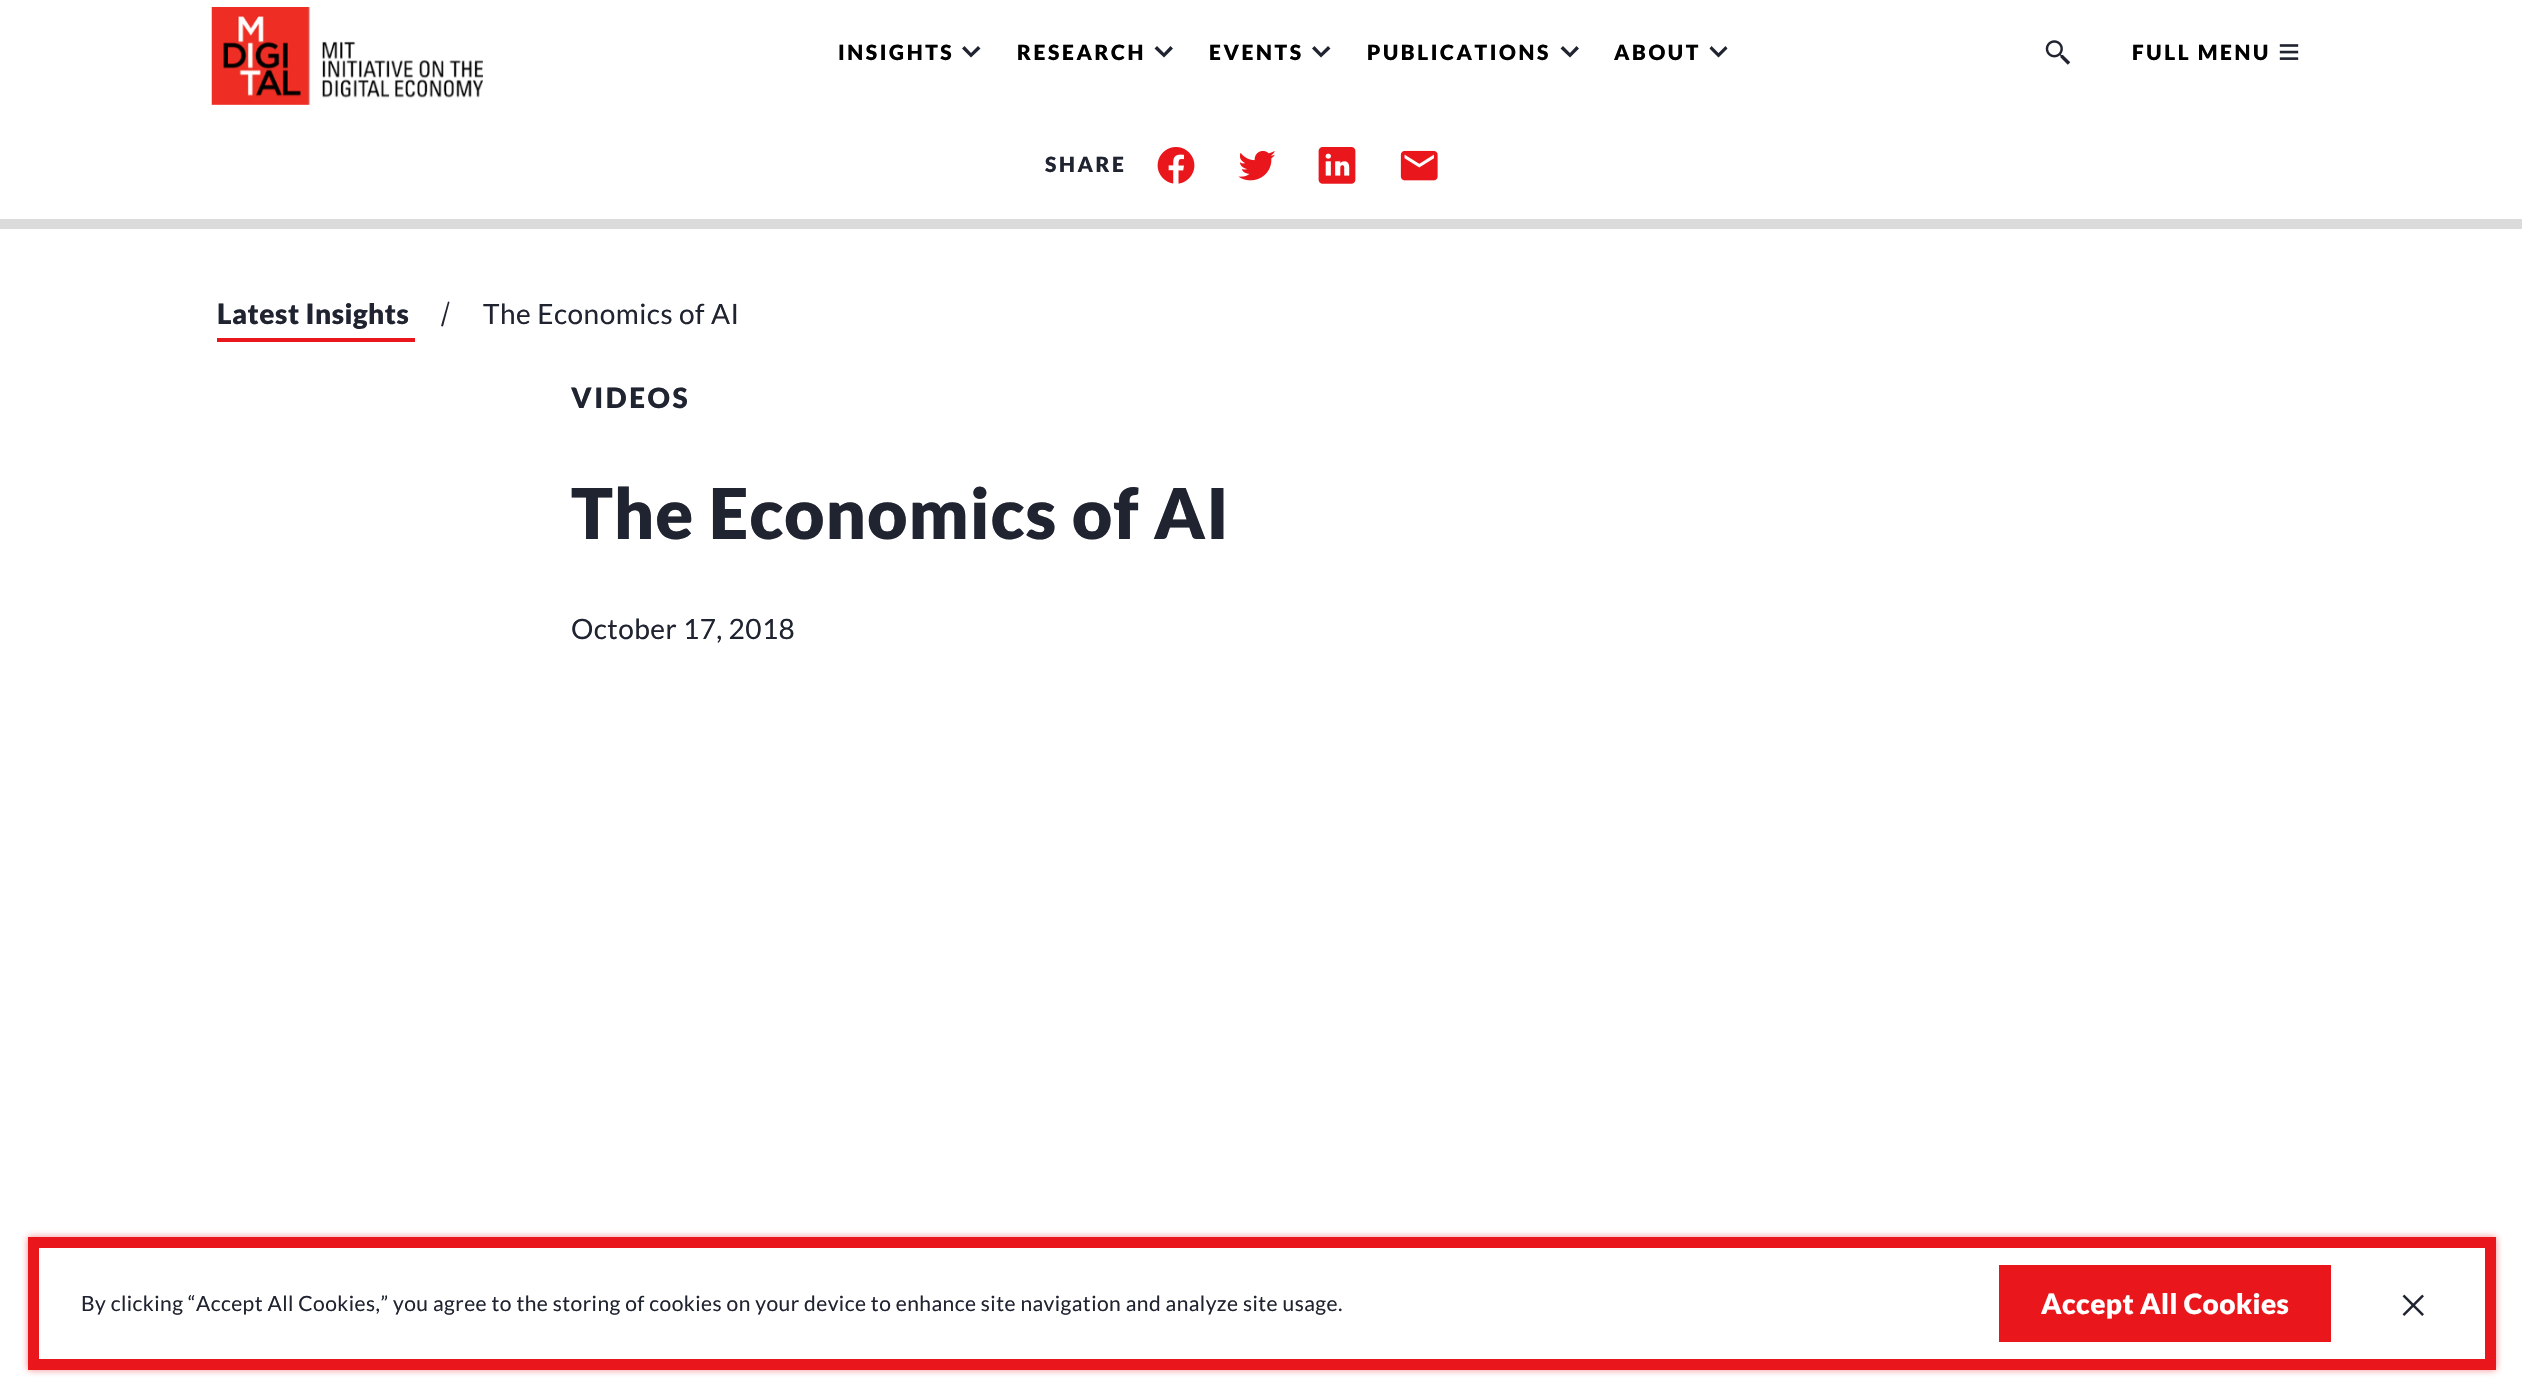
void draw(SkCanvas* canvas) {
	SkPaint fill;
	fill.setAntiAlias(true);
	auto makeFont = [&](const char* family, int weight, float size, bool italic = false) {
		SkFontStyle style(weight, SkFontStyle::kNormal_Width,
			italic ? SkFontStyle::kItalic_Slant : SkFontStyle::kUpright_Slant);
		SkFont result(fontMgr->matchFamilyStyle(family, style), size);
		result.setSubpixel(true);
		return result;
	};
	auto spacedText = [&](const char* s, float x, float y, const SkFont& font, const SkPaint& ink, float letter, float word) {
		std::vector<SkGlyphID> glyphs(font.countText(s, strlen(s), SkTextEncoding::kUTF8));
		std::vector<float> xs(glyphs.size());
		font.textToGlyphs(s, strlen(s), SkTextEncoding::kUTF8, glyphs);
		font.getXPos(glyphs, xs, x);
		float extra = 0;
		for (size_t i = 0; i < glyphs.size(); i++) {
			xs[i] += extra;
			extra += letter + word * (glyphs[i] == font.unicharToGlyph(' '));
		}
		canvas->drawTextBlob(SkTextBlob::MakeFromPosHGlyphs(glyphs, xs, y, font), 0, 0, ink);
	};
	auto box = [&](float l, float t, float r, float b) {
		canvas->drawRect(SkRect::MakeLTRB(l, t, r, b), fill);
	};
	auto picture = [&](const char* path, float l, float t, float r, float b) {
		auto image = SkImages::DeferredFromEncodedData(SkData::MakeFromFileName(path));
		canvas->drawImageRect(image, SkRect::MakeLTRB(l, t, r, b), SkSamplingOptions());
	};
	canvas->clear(0xFFFFFFFF);
	picture("image0.png", 211, 7, 483, 105);
	fill.setColor(0xFF202431);
	canvas->drawPath(SkPathBuilder().moveTo(964.5f, 46).lineTo(962, 48.5f).lineTo(971, 57.5f).lineTo(980.5f, 48.5f).lineTo(978, 46).lineTo(971, 53).close().detach(), fill);
	canvas->drawPath(SkPathBuilder().moveTo(1157, 46).lineTo(1154.5f, 48.5f).lineTo(1164, 57.5f).lineTo(1173, 48.5f).lineTo(1170.5f, 46).lineTo(1164, 53).close().detach(), fill);
	canvas->drawPath(SkPathBuilder().moveTo(1314.5f, 46).lineTo(1312, 48.5f).lineTo(1321, 57.5f).lineTo(1330.5f, 48.5f).lineTo(1328, 46).lineTo(1321, 53).close().detach(), fill);
	canvas->drawPath(SkPathBuilder().moveTo(1563, 46).lineTo(1560.5f, 48.5f).lineTo(1570, 57.5f).lineTo(1579, 48.5f).lineTo(1576.5f, 46).lineTo(1570, 53).close().detach(), fill);
	canvas->drawPath(SkPathBuilder().moveTo(1711.5f, 46).lineTo(1709.5f, 48.5f).lineTo(1718.5f, 57.5f).lineTo(1727.5f, 48.5f).lineTo(1725.5f, 46).lineTo(1718.5f, 53).close().detach(), fill);
	picture("image1.png", 2045, 40, 2071, 65);
	picture("image2.png", 2279, 44, 2299, 60);
	picture("image3.png", 1157, 147, 1195, 184);
	picture("image4.png", 1238, 150, 1275, 181);
	picture("image5.png", 1318, 147, 1356, 184);
	picture("image6.png", 1400, 150, 1438, 181);
	fill.setColor(0xFFDBDBDB);
	box(0, 219, 2522, 229);
	fill.setColor(0xFFE9161C);
	box(217, 338, 415, 342);
	fill.setColor(0xFF202431);
	canvas->drawPath(SkPathBuilder().moveTo(448, 301.5f).lineTo(441, 326).lineTo(443, 326.5f).lineTo(449.5f, 302).close().detach(), fill);
	fill.setColor(0x80E9161C);
	fill.setMaskFilter(SkMaskFilter::MakeBlur(kNormal_SkBlurStyle, 3.5f));
	canvas->drawRect(SkRect::MakeLTRB(28, 1237, 2496, 1370), fill);
	fill.setMaskFilter(nullptr);
	fill.setColor(0xFFFFFFFF);
	canvas->drawRect(SkRect::MakeLTRB(33.5f, 1242.5f, 2490.5f, 1364.5f), fill);
	fill.setStyle(SkPaint::kStroke_Style);
	fill.setStrokeWidth(11);
	fill.setColor(0xFFE9161C);
	canvas->drawRect(SkRect::MakeLTRB(33.5f, 1242.5f, 2490.5f, 1364.5f), fill);
	fill.setStyle(SkPaint::kFill_Style);
	box(1999, 1265, 2331, 1342);
	picture("image7.png", 2402, 1294, 2424, 1316);
	auto font1 = makeFont("Lato", 900, 21);
	fill.setColor(0xFF000000);
	spacedText("INSIGHTS", 838, 60, font1, fill, 2.6f, 0);
	spacedText("RESEARCH", 1017, 60, font1, fill, 2.6f, 0);
	spacedText("EVENTS", 1209, 60, font1, fill, 2.6f, 0);
	spacedText("PUBLICATIONS", 1367, 60, font1, fill, 2.6f, 0);
	spacedText("ABOUT", 1614, 60, font1, fill, 2.6f, 0);
	spacedText("FULL MENU", 2132, 60, font1, fill, 2.6f, 0);
	fill.setColor(0xFF202431);
	spacedText("SHARE", 1045, 172, font1, fill, 2.6f, 0);
	auto font2 = makeFont("Lato", 900, 28);
	spacedText("Latest Insights", 217, 324, font2, fill, 0.5f, 0);
	auto font3 = makeFont("Lato", 400, 28);
	spacedText("The Economics of AI", 483, 324, font3, fill, 0.5f, 0);
	spacedText("VIDEOS", 571, 408, font2, fill, 2.6f, 0);
	auto font4 = makeFont("Lato", 900, 70);
	spacedText("The Economics of AI", 571, 539, font4, fill, 0.9f, 0);
	spacedText("October 17, 2018", 571, 639, font3, fill, 0.44f, 0);
	auto font5 = makeFont("Lato", 400, 21);
	spacedText("By clicking “Accept All Cookies,” you agree to the storing of cookies on your device to enhance site navigation and analyze site usage.", 81, 1311, font5, fill, 0.44f, 0);
	fill.setColor(0xFFFFFFFF);
	spacedText("Accept All Cookies", 2041, 1314, font2, fill, 0.44f, 0);
}
